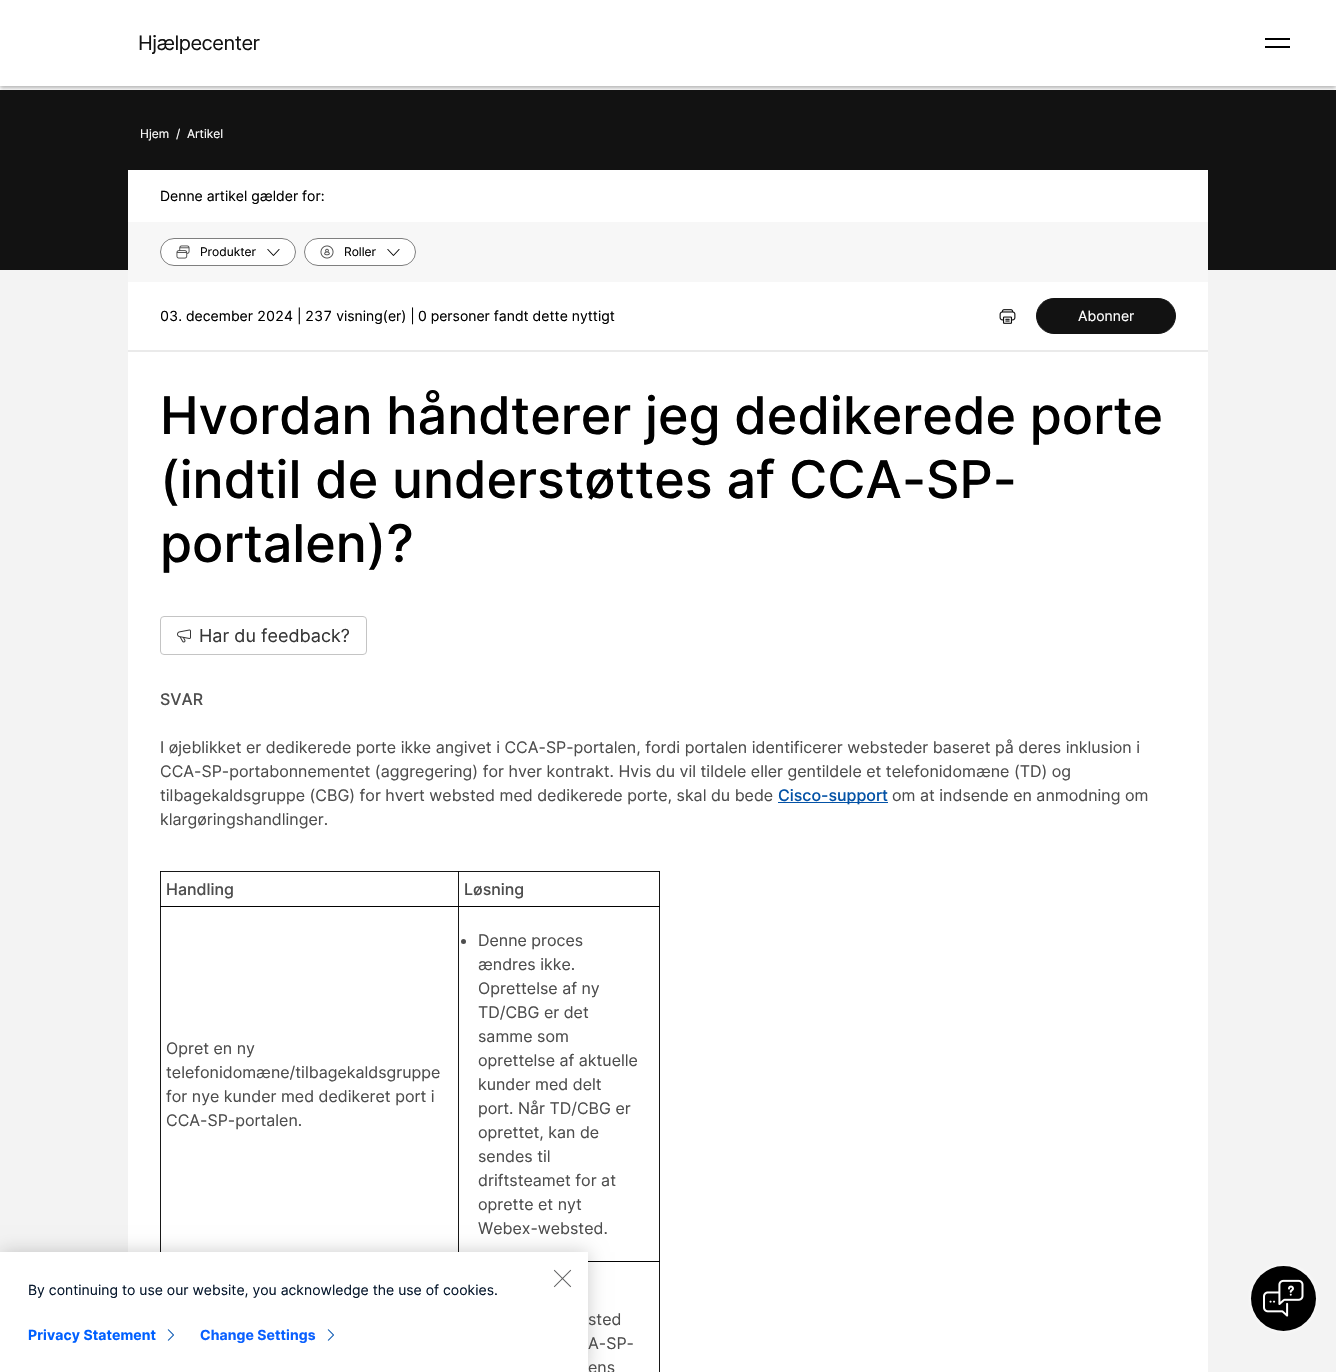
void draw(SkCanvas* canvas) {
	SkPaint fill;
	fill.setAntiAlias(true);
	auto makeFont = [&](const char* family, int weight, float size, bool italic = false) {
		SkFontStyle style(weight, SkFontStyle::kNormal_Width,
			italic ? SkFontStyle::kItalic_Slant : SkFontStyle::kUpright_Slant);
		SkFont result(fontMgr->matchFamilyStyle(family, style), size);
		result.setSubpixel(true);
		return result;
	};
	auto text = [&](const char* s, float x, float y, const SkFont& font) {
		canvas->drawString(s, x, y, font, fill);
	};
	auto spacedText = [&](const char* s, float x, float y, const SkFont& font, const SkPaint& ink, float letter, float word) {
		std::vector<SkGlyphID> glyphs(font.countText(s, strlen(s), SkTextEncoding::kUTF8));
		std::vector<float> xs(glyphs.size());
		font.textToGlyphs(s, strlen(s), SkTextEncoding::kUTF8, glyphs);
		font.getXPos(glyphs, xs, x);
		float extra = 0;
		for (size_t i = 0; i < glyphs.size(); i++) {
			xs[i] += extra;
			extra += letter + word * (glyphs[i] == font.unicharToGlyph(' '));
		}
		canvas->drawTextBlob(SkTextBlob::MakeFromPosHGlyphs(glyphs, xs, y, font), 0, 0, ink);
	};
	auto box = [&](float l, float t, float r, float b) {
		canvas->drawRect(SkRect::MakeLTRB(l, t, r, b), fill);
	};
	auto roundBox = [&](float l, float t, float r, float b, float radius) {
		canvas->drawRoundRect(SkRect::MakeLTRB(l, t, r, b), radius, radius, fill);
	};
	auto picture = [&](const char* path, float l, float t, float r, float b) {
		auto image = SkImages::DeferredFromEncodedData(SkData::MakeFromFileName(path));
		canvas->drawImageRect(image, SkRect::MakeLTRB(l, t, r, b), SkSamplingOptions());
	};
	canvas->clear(0xFFFFFFFF);
	fill.setColor(0xFF121212);
	box(0, 90, 1336, 270);
	canvas->save();
	canvas->clipRect(SkRect::MakeLTRB(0, 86, 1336, 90));
	fill.setColor(0x29000000);
	fill.setMaskFilter(SkMaskFilter::MakeBlur(kNormal_SkBlurStyle, 2));
	canvas->drawRect(SkRect::MakeLTRB(0, 2, 1336, 88), fill);
	fill.setMaskFilter(nullptr);
	fill.setMaskFilter(SkMaskFilter::MakeBlur(kNormal_SkBlurStyle, 2));
	canvas->drawRect(SkRect::MakeLTRB(0, 2, 1336, 88), fill);
	fill.setMaskFilter(nullptr);
	canvas->restore();
	fill.setColor(0xFF000000);
	box(1265, 38, 1290, 40);
	box(1265, 46, 1290, 48);
	fill.setColor(0xFFF3F3F3);
	box(0, 270, 1336, 1372);
	fill.setColor(0xFFFFFFFF);
	box(128, 170, 1208, 1372);
	fill.setColor(0xFF171717);
	box(458, 871, 459, 1252);
	box(160, 871, 161, 1252);
	box(659, 871, 660, 1372);
	fill.setColor(0xFFEAEAEA);
	box(128, 350, 1208, 352);
	fill.setColor(0xFFF7F7F7);
	box(128, 222, 1208, 282);
	fill.setColor(0xFFFFFFFF);
	roundBox(160, 238, 296, 266, 14);
	fill.setStyle(SkPaint::kStroke_Style);
	fill.setStrokeWidth(1);
	fill.setColor(0x80000000);
	canvas->drawRoundRect(SkRect::MakeLTRB(160.5f, 238.5f, 295.5f, 265.5f), 13.5f, 13.5f, fill);
	picture("image0.png", 176, 245, 190, 259);
	picture("image1.png", 267, 249, 280, 256);
	fill.setStyle(SkPaint::kFill_Style);
	fill.setColor(0xFFFFFFFF);
	roundBox(304, 238, 416, 266, 14);
	fill.setStyle(SkPaint::kStroke_Style);
	fill.setColor(0x80000000);
	canvas->drawRoundRect(SkRect::MakeLTRB(304.5f, 238.5f, 415.5f, 265.5f), 13.5f, 13.5f, fill);
	picture("image2.png", 320, 245, 334, 259);
	picture("image1.png", 387, 249, 400, 256);
	picture("image3.png", 999, 309, 1016, 324);
	fill.setStyle(SkPaint::kFill_Style);
	fill.setColor(0xFF121212);
	canvas->drawRoundRect(SkRect::MakeLTRB(1036.5f, 298.5f, 1175.5f, 333.5f), 17.5f, 17.5f, fill);
	fill.setStyle(SkPaint::kStroke_Style);
	canvas->drawRoundRect(SkRect::MakeLTRB(1036.5f, 298.5f, 1175.5f, 333.5f), 17.5f, 17.5f, fill);
	fill.setColor(0xFFC4C4C4);
	canvas->drawRoundRect(SkRect::MakeLTRB(160.5f, 616.5f, 366.5f, 654.5f), 3.5f, 3.5f, fill);
	picture("image4.png", 177, 629, 191, 643);
	fill.setStyle(SkPaint::kFill_Style);
	fill.setColor(0xFF0352A6);
	box(778, 802, 888, 803);
	fill.setColor(0xFF171717);
	box(160, 871, 660, 872);
	fill.setColor(0xFF010101);
	box(458, 871, 459, 872);
	fill.setColor(0xFF020202);
	box(160, 871, 161, 872);
	box(659, 871, 660, 872);
	box(160, 906, 660, 907);
	fill.setColor(0xFF4D4D4D);
	canvas->drawCircle(463.5f, 941.5f, 2.5f, fill);
	fill.setColor(0xFF020202);
	box(588, 1261, 660, 1262);
	fill.setColor(0xFFFFFFFF);
	fill.setMaskFilter(SkMaskFilter::MakeBlur(kNormal_SkBlurStyle, 2.5f));
	canvas->drawRoundRect(SkRect::MakeLTRB(1251, 1266, 1316, 1331), 32.5f, 32.5f, fill);
	fill.setMaskFilter(nullptr);
	fill.setColor(0xFF000000);
	canvas->drawCircle(1283.5f, 1298.5f, 32.5f, fill);
	picture("image5.png", 1263, 1279, 1304, 1317);
	fill.setColor(0x33000000);
	fill.setMaskFilter(SkMaskFilter::MakeBlur(kNormal_SkBlurStyle, 9));
	canvas->drawRect(SkRect::MakeLTRB(0, 1252, 588, 1372), fill);
	fill.setMaskFilter(nullptr);
	fill.setColor(0xFFFFFFFF);
	box(0, 1252, 588, 1372);
	picture("image6.png", 553, 1269, 572, 1288);
	picture("image7.png", 167, 1329, 174, 1341);
	picture("image7.png", 327, 1329, 334, 1341);
	auto font1 = makeFont("Inter", 400, 20);
	fill.setColor(0xFF121212);
	spacedText("Hjælpecenter", 138, 50, font1, fill, -0.5f, 0);
	auto font2 = makeFont("Inter", 400, 12);
	fill.setColor(0xFFFFFFFF);
	text("Hjem", 140, 138, font2);
	text("/", 176, 138, font2);
	text("Artikel", 187, 138, font2);
	auto font3 = makeFont("Inter", 400, 14);
	fill.setColor(0xFF000000);
	text("Denne artikel gælder for:", 160, 201, font3);
	text("Produkter", 200, 256, font2);
	text("Roller", 344, 256, font2);
	auto font4 = makeFont("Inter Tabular", 400, 14);
	text("03. december 2024 |", 160, 321, font4);
	text("237 visning(er) |", 305, 321, font4);
	text("0 personer fandt dette nyttigt", 418, 321, font3);
	fill.setColor(0xFFFFFFFF);
	text("Abonner", 1078, 321, font3);
	auto font5 = makeFont("Inter", 500, 52);
	fill.setColor(0xFF000000);
	text("Hvordan håndterer jeg dedikerede porte", 160, 434, font5);
	text("(indtil de understøttes af CCA-SP-", 160, 498, font5);
	text("portalen)?", 160, 562, font5);
	auto font6 = makeFont("Inter", 400, 18);
	fill.setColor(0xFF363636);
	text("Har du feedback?", 199, 642, font6);
	auto font7 = makeFont("Inter", 500, 16);
	fill.setColor(0xFF4D4D4D);
	text("SVAR", 160, 705, font7);
	auto font8 = makeFont("Inter", 400, 16);
	text("I øjeblikket er dedikerede porte ikke angivet i CCA-SP-portalen, fordi portalen identificerer websteder baseret på deres inklusion i", 160, 753, font8);
	text("CCA-SP-portabonnementet (aggregering) for hver kontrakt. Hvis du vil tildele eller gentildele et telefonidomæne (TD) og", 160, 777, font8);
	text("tilbagekaldsgruppe (CBG) for hvert websted med dedikerede porte, skal du bede", 160, 801, font8);
	fill.setColor(0xFF0352A6);
	text("Cisco-support", 778, 801, font7);
	fill.setColor(0xFF4D4D4D);
	text("om at indsende en anmodning om", 892, 801, font8);
	text("klargøringshandlinger.", 160, 825, font8);
	text("Handling", 166, 895, font7);
	text("Løsning", 464, 895, font7);
	text("Opret en ny", 166, 1054, font8);
	text("telefonidomæne/tilbagekaldsgruppe", 166, 1078, font8);
	text("for nye kunder med dedikeret port i", 166, 1102, font8);
	text("CCA-SP-portalen.", 166, 1126, font8);
	text("Denne proces", 478, 946, font8);
	text("ændres ikke.", 478, 970, font8);
	text("Oprettelse af ny", 478, 994, font8);
	text("TD/CBG er det", 478, 1018, font8);
	text("samme som", 478, 1042, font8);
	text("oprettelse af aktuelle", 478, 1066, font8);
	text("kunder med delt", 478, 1090, font8);
	text("port. Når TD/CBG er", 478, 1114, font8);
	text("oprettet, kan de", 478, 1138, font8);
	text("sendes til", 478, 1162, font8);
	text("driftsteamet for at", 478, 1186, font8);
	text("oprette et nyt", 478, 1210, font8);
	text("Webex-websted.", 478, 1234, font8);
	text("sted", 588, 1325, font8);
	text("A-SP-", 588, 1349, font8);
	text("ens", 588, 1373, font8);
	fill.setColor(0xFF07182D);
	text("By continuing to use our website, you acknowledge the use of cookies.", 28, 1295, font3);
	auto font9 = makeFont("Inter", 700, 14);
	fill.setColor(0xFF0060FF);
	spacedText("Privacy Statement", 28, 1340, font9, fill, 0.1f, 0);
	fill.setColor(0xFF0A60FF);
	spacedText("Change Settings", 200, 1340, font9, fill, 0.1f, 0);
}
